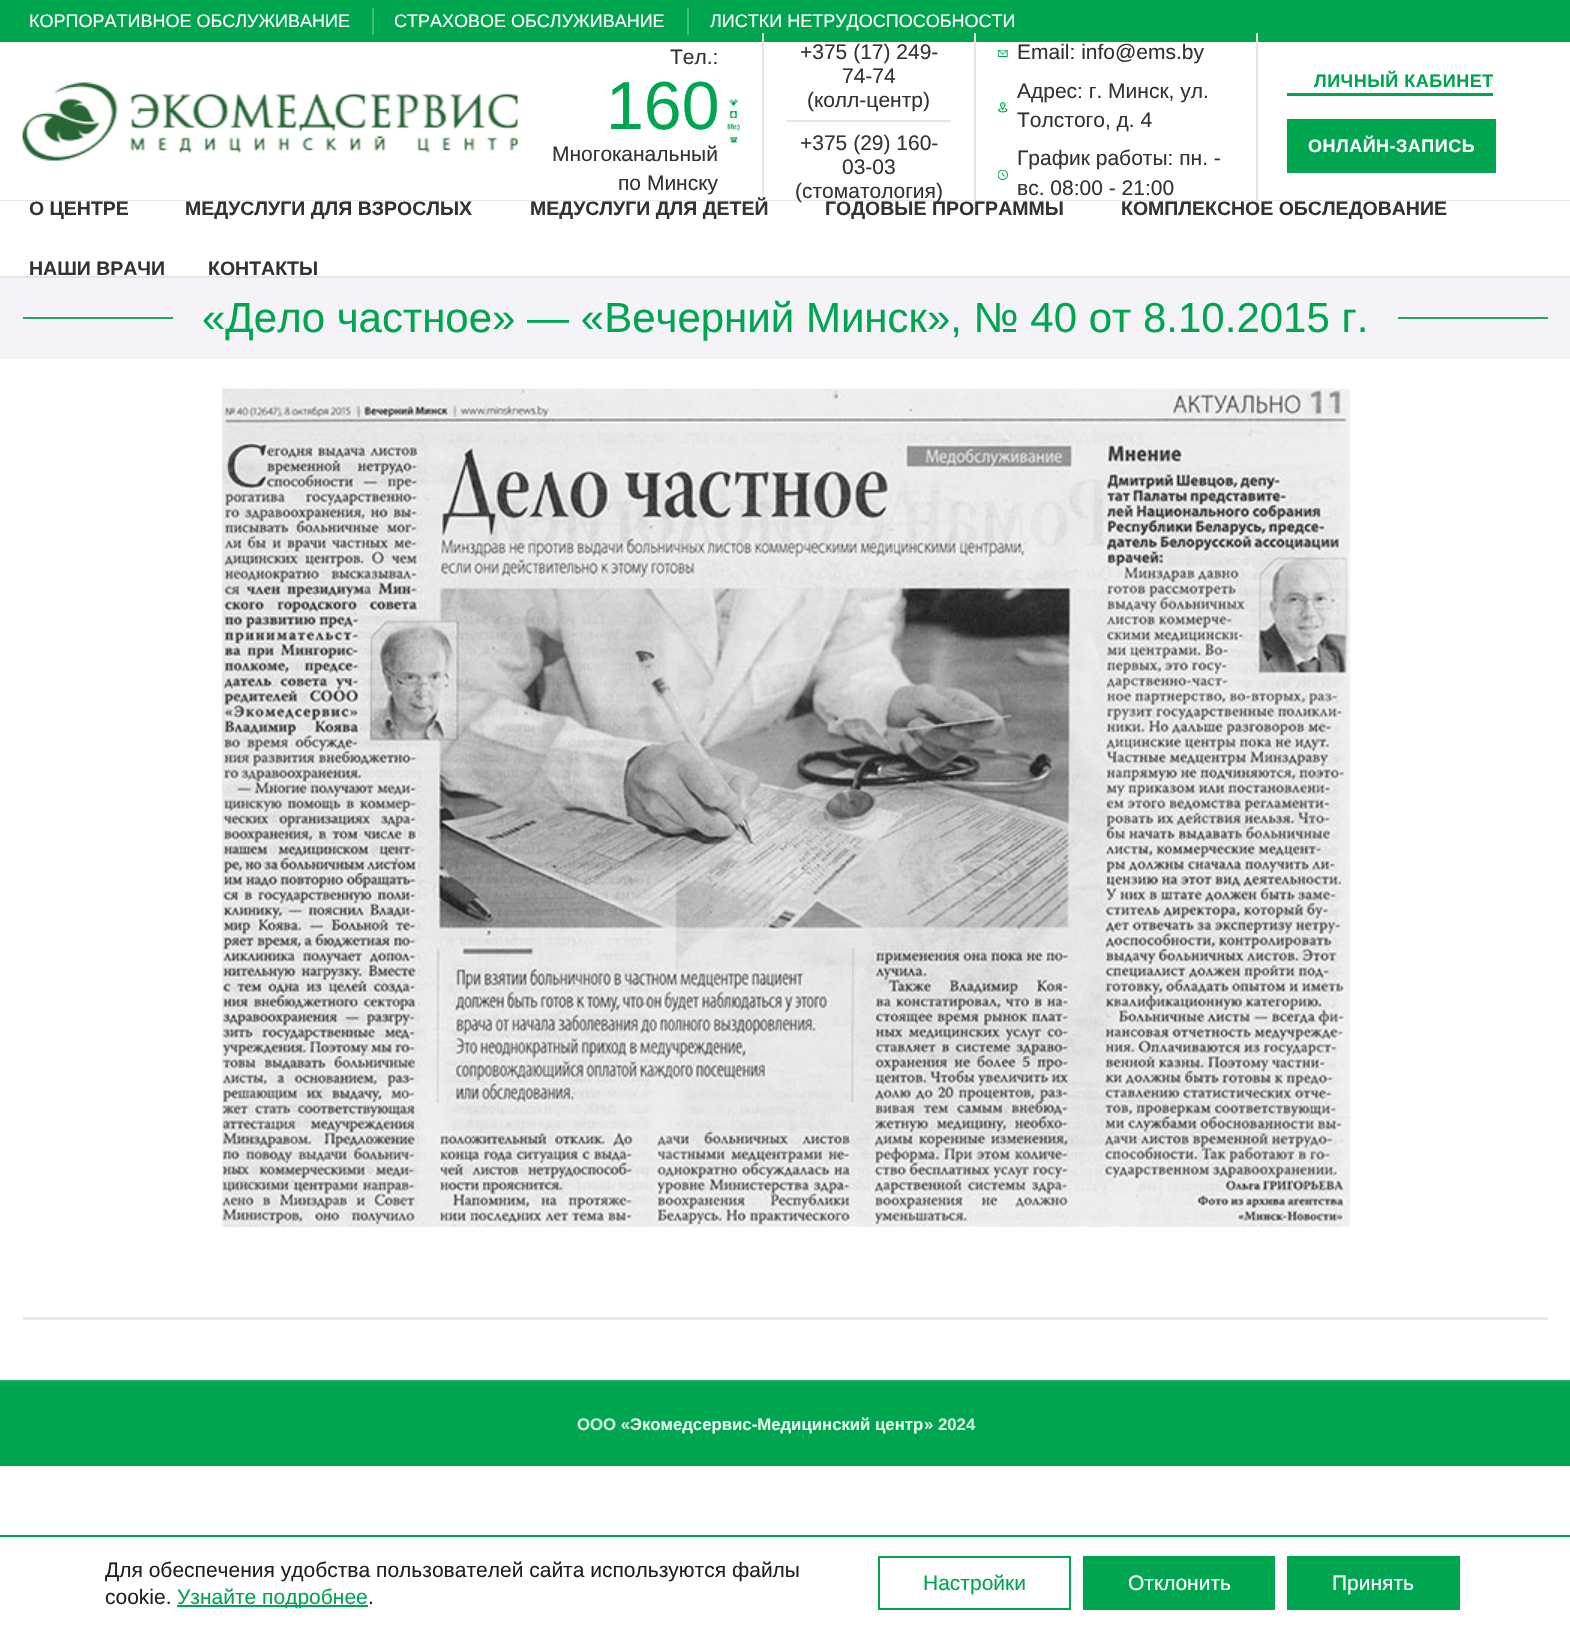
void draw(SkCanvas* canvas) {
	SkPaint fill;
	fill.setAntiAlias(true);
	auto makeFont = [&](const char* family, int weight, float size, bool italic = false) {
		SkFontStyle style(weight, SkFontStyle::kNormal_Width,
			italic ? SkFontStyle::kItalic_Slant : SkFontStyle::kUpright_Slant);
		SkFont result(fontMgr->matchFamilyStyle(family, style), size);
		result.setSubpixel(true);
		return result;
	};
	auto text = [&](const char* s, float x, float y, const SkFont& font) {
		canvas->drawString(s, x, y, font, fill);
	};
	auto spacedText = [&](const char* s, float x, float y, const SkFont& font, const SkPaint& ink, float letter, float word) {
		std::vector<SkGlyphID> glyphs(font.countText(s, strlen(s), SkTextEncoding::kUTF8));
		std::vector<float> xs(glyphs.size());
		font.textToGlyphs(s, strlen(s), SkTextEncoding::kUTF8, glyphs);
		font.getXPos(glyphs, xs, x);
		float extra = 0;
		for (size_t i = 0; i < glyphs.size(); i++) {
			xs[i] += extra;
			extra += letter + word * (glyphs[i] == font.unicharToGlyph(' '));
		}
		canvas->drawTextBlob(SkTextBlob::MakeFromPosHGlyphs(glyphs, xs, y, font), 0, 0, ink);
	};
	auto box = [&](float l, float t, float r, float b) {
		canvas->drawRect(SkRect::MakeLTRB(l, t, r, b), fill);
	};
	auto picture = [&](const char* path, float l, float t, float r, float b) {
		auto image = SkImages::DeferredFromEncodedData(SkData::MakeFromFileName(path));
		canvas->drawImageRect(image, SkRect::MakeLTRB(l, t, r, b), SkSamplingOptions());
	};
	canvas->clear(0xFFFFFFFF);
	fill.setColor(0xFF00A550);
	box(0, 0, 1570, 42);
	fill.setColor(0xFF40BC7C);
	box(372, 8, 374, 35);
	box(687, 8, 689, 35);
	fill.setColor(0xFFE6E6E6);
	box(0, 200, 1570, 201);
	picture("image0.png", 22, 82, 518, 161);
	box(762, 33, 764, 209);
	picture("image1.png", 727, 98, 740, 143);
	box(974, 33, 976, 209);
	box(786, 120, 951, 122);
	picture("image2.png", 998, 50, 1008, 57);
	picture("image3.png", 998, 102, 1008, 113);
	picture("image4.png", 998, 170, 1008, 180);
	box(1256, 33, 1258, 209);
	fill.setColor(0xFF00A550);
	box(1287, 93, 1493, 96);
	box(1287, 119, 1496, 173);
	fill.setColor(0xFFE6E6E6);
	box(0, 276, 1570, 278);
	fill.setColor(0xFFF5F3F8);
	box(0, 278, 1570, 359);
	fill.setColor(0xFF25A862);
	box(23, 317, 173, 319);
	box(1398, 317, 1548, 319);
	picture("image5.png", 222, 388, 1350, 1227);
	fill.setColor(0xFFEAEAEA);
	box(23, 1317, 1548, 1320);
	fill.setColor(0xFF00A550);
	box(0, 1382, 1570, 1466);
	fill.setColor(0xFF1AAE62);
	box(0, 1380, 1570, 1382);
	fill.setColor(0xFF00A550);
	box(0, 1535, 1570, 1537);
	box(177, 1605, 368, 1607);
	fill.setStyle(SkPaint::kStroke_Style);
	fill.setStrokeWidth(2);
	canvas->drawRect(SkRect::MakeLTRB(879, 1557, 1070, 1609), fill);
	fill.setStyle(SkPaint::kFill_Style);
	box(1083, 1556, 1275, 1610);
	box(1287, 1556, 1460, 1610);
	auto font1 = makeFont("Liberation Sans", 400, 18);
	fill.setColor(0xFFFFFFFF);
	text("КОРПОРАТИВНОЕ ОБСЛУЖИВАНИЕ", 29, 27, font1);
	text("СТРАХОВОЕ ОБСЛУЖИВАНИЕ", 394, 27, font1);
	text("ЛИСТКИ НЕТРУДОСПОСОБНОСТИ", 710, 27, font1);
	auto font2 = makeFont("Liberation Sans", 400, 21);
	fill.setColor(0xFF333333);
	text("Тел.:", 670, 64, font2);
	auto font3 = makeFont("Liberation Sans", 400, 68);
	fill.setColor(0xFF00A550);
	text("160", 606, 129, font3);
	fill.setColor(0xFF333333);
	text("Многоканальный", 552, 161, font2);
	text("по Минску", 618, 190, font2);
	text("+375 (17) 249-", 800, 59, font2);
	text("74-74", 842, 83, font2);
	text("(колл-центр)", 807, 107, font2);
	text("+375 (29) 160-", 800, 150, font2);
	text("03-03", 842, 174, font2);
	text("(стоматология)", 795, 198, font2);
	text("Email: info@ems.by", 1017, 59, font2);
	text("Адрес: г. Минск, ул.", 1017, 98, font2);
	text("Толстого, д. 4", 1017, 127, font2);
	text("График работы: пн. -", 1017, 165, font2);
	text("вс. 08:00 - 21:00", 1017, 195, font2);
	auto font4 = makeFont("Liberation Sans", 700, 18);
	fill.setColor(0xFF00A550);
	spacedText("ЛИЧНЫЙ КАБИНЕТ", 1314, 87, font4, fill, 0.5f, 0);
	fill.setColor(0xFFFFFFFF);
	spacedText("ОНЛАЙН-ЗАПИСЬ", 1308, 152, font4, fill, 0.5f, 0);
	auto font5 = makeFont("Liberation Sans", 700, 19.5f);
	fill.setColor(0xFF333333);
	text("О ЦЕНТРЕ", 29, 215, font5);
	text("МЕДУСЛУГИ ДЛЯ ВЗРОСЛЫХ", 185, 215, font5);
	text("МЕДУСЛУГИ ДЛЯ ДЕТЕЙ", 530, 215, font5);
	text("ГОДОВЫЕ ПРОГРАММЫ", 825, 215, font5);
	text("КОМПЛЕКСНОЕ ОБСЛЕДОВАНИЕ", 1121, 215, font5);
	text("НАШИ ВРАЧИ", 29, 275, font5);
	text("КОНТАКТЫ", 208, 275, font5);
	auto font6 = makeFont("Liberation Sans", 400, 42);
	fill.setColor(0xFF00A550);
	text("«Дело частное» — «Вечерний Минск», № 40 от 8.10.2015 г.", 202, 332, font6);
	auto font7 = makeFont("Liberation Sans", 700, 16.75f);
	fill.setColor(0xFFCCEDDC);
	text("ООО «", 577, 1430, font7);
	fill.setColor(0xFFE6F6EE);
	text("Экомедсервис-Медицинский центр", 630, 1430, font7);
	fill.setColor(0xFFCCEDDC);
	text("» 2024", 924, 1430, font7);
	fill.setColor(0xFF202020);
	text("Для обеспечения удобства пользователей сайта используются файлы", 105, 1577, font2);
	text("cookie.", 105, 1604, font2);
	fill.setColor(0xFF00A550);
	text("Узнайте подробнее", 177, 1604, font2);
	fill.setColor(0xFF202020);
	text(".", 368, 1604, font2);
	fill.setColor(0xFF00A550);
	text("Настройки", 923, 1590, font2);
	fill.setColor(0xFFFFFFFF);
	text("Отклонить", 1128, 1590, font2);
	text("Принять", 1332, 1590, font2);
}
